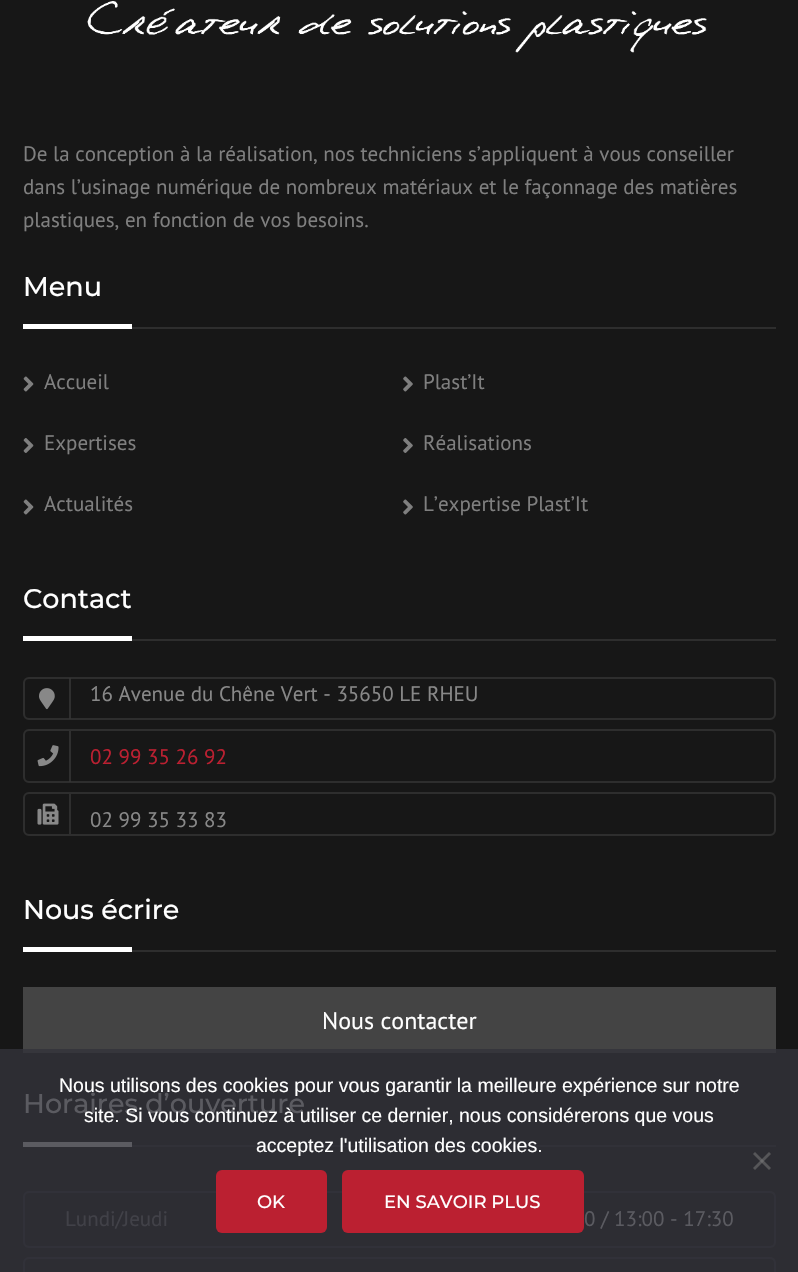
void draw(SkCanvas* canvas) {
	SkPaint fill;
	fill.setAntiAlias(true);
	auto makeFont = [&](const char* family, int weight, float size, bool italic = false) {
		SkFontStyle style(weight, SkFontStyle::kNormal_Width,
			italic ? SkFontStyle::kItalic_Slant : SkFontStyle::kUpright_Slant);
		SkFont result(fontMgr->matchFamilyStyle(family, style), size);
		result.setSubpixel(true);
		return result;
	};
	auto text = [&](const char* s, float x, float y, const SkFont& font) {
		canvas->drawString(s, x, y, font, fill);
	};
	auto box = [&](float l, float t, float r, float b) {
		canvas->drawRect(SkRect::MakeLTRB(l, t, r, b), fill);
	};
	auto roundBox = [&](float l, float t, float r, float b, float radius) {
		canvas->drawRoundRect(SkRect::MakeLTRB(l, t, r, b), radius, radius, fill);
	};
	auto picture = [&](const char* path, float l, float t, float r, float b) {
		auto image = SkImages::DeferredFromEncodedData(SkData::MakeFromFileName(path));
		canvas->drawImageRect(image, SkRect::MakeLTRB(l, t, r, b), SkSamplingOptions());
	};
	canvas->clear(0xFF171717);
	fill.setColor(0xFF2D2D33);
	box(0, 1049, 798, 1272);
	picture("image0.png", 87, 1, 707, 53);
	fill.setColor(0xFF2E2E2E);
	box(132, 327, 776, 329);
	fill.setColor(0xFFFFFFFF);
	box(23, 324, 132, 329);
	picture("image1.png", 23, 376, 34, 392);
	picture("image2.png", 403, 376, 413, 392);
	picture("image3.png", 23, 438, 34, 453);
	picture("image4.png", 403, 438, 413, 453);
	picture("image1.png", 23, 499, 34, 515);
	picture("image2.png", 403, 499, 413, 515);
	fill.setColor(0xFF2E2E2E);
	box(132, 639, 776, 641);
	fill.setColor(0xFFFFFFFF);
	box(23, 636, 132, 641);
	fill.setStyle(SkPaint::kStroke_Style);
	fill.setStrokeWidth(2);
	fill.setColor(0xFF2E2E2E);
	canvas->drawRoundRect(SkRect::MakeLTRB(24, 678, 775, 719), 5, 5, fill);
	picture("image5.png", 39, 688, 55, 710);
	fill.setStyle(SkPaint::kFill_Style);
	fill.setColor(0xCC343434);
	box(69, 678, 71, 719);
	fill.setStyle(SkPaint::kStroke_Style);
	fill.setColor(0xFF2E2E2E);
	canvas->drawRoundRect(SkRect::MakeLTRB(24, 730, 775, 782), 5, 5, fill);
	picture("image6.png", 37, 745, 59, 767);
	fill.setStyle(SkPaint::kFill_Style);
	fill.setColor(0xCC343434);
	box(69, 731, 71, 782);
	fill.setStyle(SkPaint::kStroke_Style);
	fill.setColor(0xFF2E2E2E);
	canvas->drawRoundRect(SkRect::MakeLTRB(24, 793, 775, 835), 5, 5, fill);
	picture("image7.png", 37, 803, 59, 825);
	fill.setStyle(SkPaint::kFill_Style);
	box(69, 794, 71, 834);
	box(132, 950, 776, 952);
	fill.setColor(0xFFFFFFFF);
	box(23, 947, 132, 952);
	fill.setColor(0xFF444444);
	box(23, 987, 776, 1049);
	fill.setColor(0xFF36363C);
	box(23, 1049, 776, 1053);
	fill.setColor(0xFF313138);
	box(132, 1145, 776, 1147);
	fill.setColor(0xFF5B5B61);
	box(23, 1142, 132, 1147);
	fill.setStyle(SkPaint::kStroke_Style);
	fill.setColor(0xCC323239);
	canvas->drawRoundRect(SkRect::MakeLTRB(24, 1192, 775, 1247), 5, 5, fill);
	canvas->drawRoundRect(SkRect::MakeLTRB(24, 1258, 775, 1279), 5, 5, fill);
	fill.setStyle(SkPaint::kFill_Style);
	fill.setColor(0x80808080);
	canvas->drawPath(SkPathBuilder().moveTo(769, 1152).lineTo(771, 1154).lineTo(755, 1170).lineTo(753, 1168).close().detach(), fill);
	canvas->drawPath(SkPathBuilder().moveTo(753, 1154).lineTo(755, 1152).lineTo(771, 1168).lineTo(769, 1170).close().detach(), fill);
	fill.setColor(0xFFBB2031);
	roundBox(216, 1170, 327, 1233, 6);
	roundBox(342, 1170, 584, 1233, 6);
	auto font1 = makeFont("PT Sans", 400, 21);
	fill.setColor(0xFF7F7F7F);
	text("De la conception à la réalisation, nos techniciens s’appliquent à vous conseiller", 23, 161, font1);
	text("dans l’usinage numérique de nombreux matériaux et le façonnage des matières", 23, 194, font1);
	text("plastiques, en fonction de vos besoins.", 23, 227, font1);
	auto font2 = makeFont("Montserrat", 500, 27);
	fill.setColor(0xFFFFFFFF);
	text("Menu", 23, 296, font2);
	fill.setColor(0xFF7F7F7F);
	text("Accueil", 44, 389, font1);
	text("Plast’It", 423, 389, font1);
	text("Expertises", 44, 450, font1);
	text("Réalisations", 423, 450, font1);
	text("Actualités", 44, 511, font1);
	text("L’expertise Plast’It", 423, 511, font1);
	fill.setColor(0xFFFFFFFF);
	text("Contact", 23, 608, font2);
	fill.setColor(0xFF888888);
	text("16 Avenue du Chêne Vert - 35650 LE RHEU", 90, 701, font1);
	fill.setColor(0xFFBB2031);
	text("02 99 35 26 92", 90, 764, font1);
	fill.setColor(0xFF888888);
	text("02 99 35 33 83", 90, 827, font1);
	fill.setColor(0xFFFFFFFF);
	text("Nous écrire", 23, 919, font2);
	auto font3 = makeFont("PT Sans", 400, 24);
	text("Nous contacter", 322, 1029, font3);
	fill.setColor(0xFF5B5B61);
	text("Horaires d’ouverture", 23, 1113, font2);
	fill.setColor(0xFF414148);
	text("Lundi/Jeudi", 65, 1226, font1);
	fill.setColor(0xFF5B5B61);
	text("0 / 13:00 - 17:30", 584, 1226, font1);
	auto font4 = makeFont("Liberation Sans", 400, 19.5f);
	fill.setColor(0xFFFFFFFF);
	text("Nous utilisons des cookies pour vous garantir la meilleure expérience sur notre", 59, 1092, font4);
	text("site. Si vous continuez à utiliser ce dernier, nous considérerons que vous", 84, 1122, font4);
	text("acceptez l'utilisation des cookies.", 256, 1152, font4);
	auto font5 = makeFont("Montserrat", 500, 18);
	text("OK", 257, 1208, font5);
	text("EN SAVOIR PLUS", 384, 1208, font5);
}
